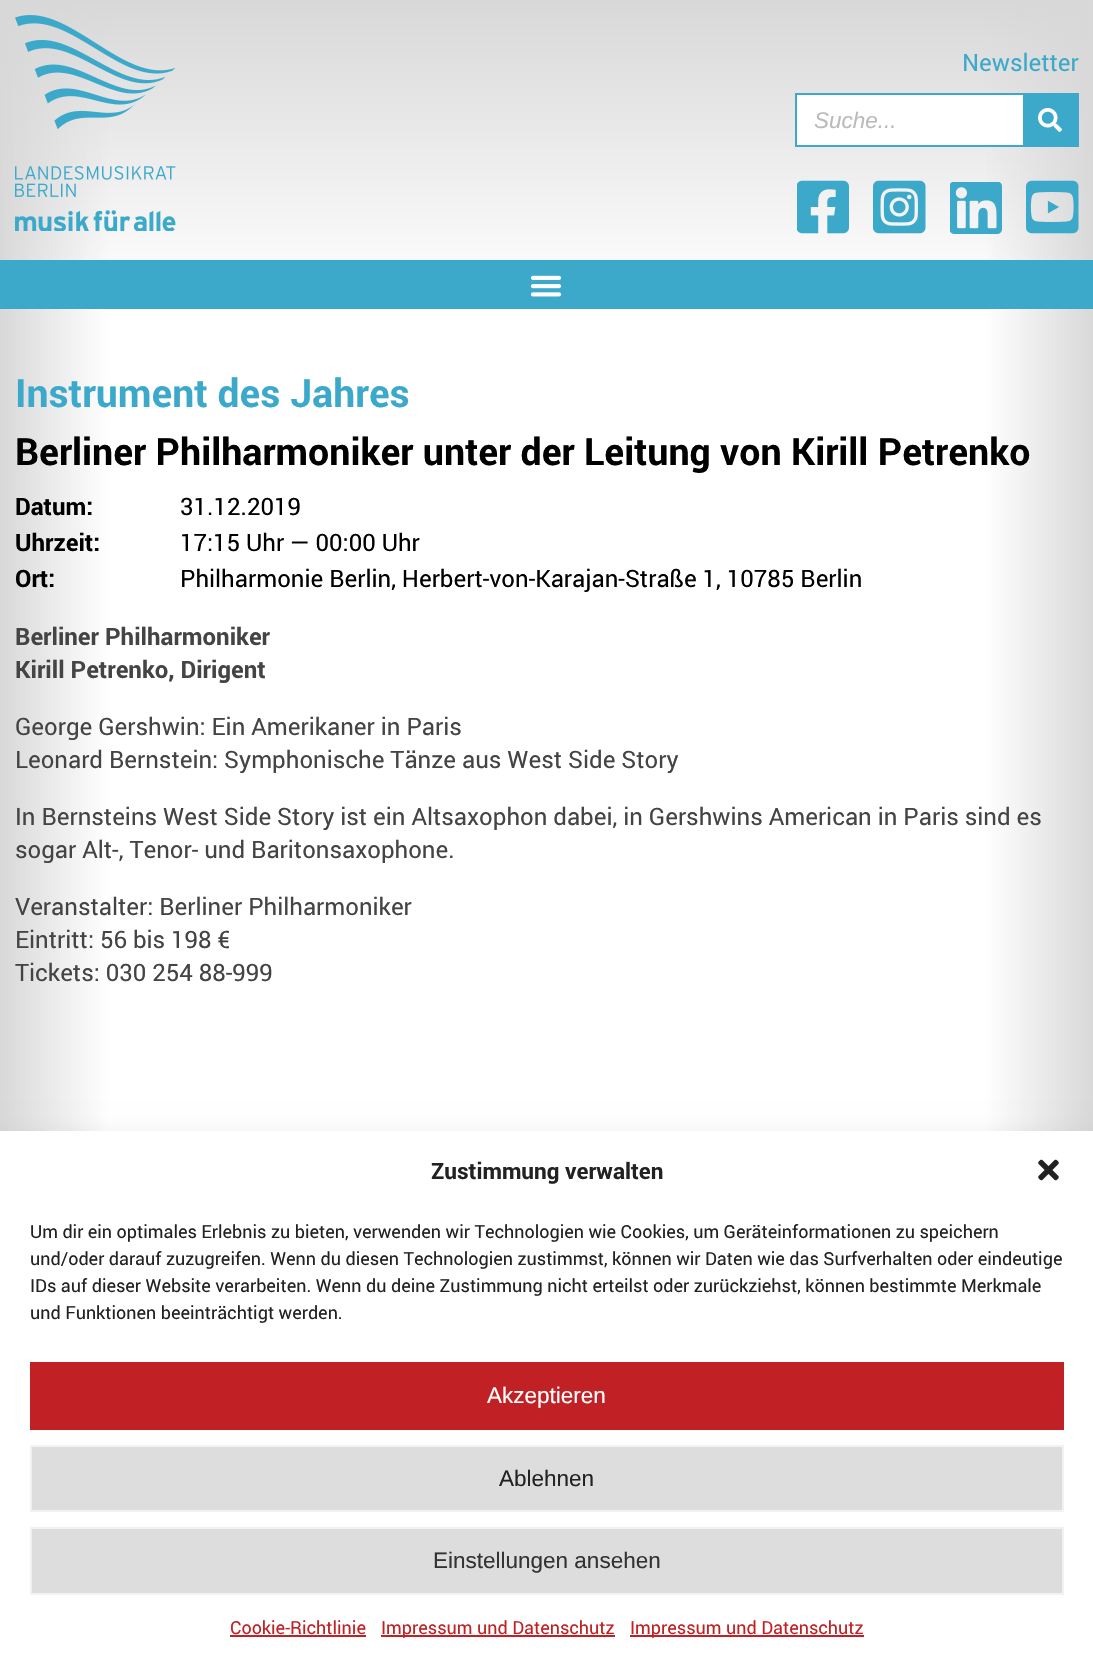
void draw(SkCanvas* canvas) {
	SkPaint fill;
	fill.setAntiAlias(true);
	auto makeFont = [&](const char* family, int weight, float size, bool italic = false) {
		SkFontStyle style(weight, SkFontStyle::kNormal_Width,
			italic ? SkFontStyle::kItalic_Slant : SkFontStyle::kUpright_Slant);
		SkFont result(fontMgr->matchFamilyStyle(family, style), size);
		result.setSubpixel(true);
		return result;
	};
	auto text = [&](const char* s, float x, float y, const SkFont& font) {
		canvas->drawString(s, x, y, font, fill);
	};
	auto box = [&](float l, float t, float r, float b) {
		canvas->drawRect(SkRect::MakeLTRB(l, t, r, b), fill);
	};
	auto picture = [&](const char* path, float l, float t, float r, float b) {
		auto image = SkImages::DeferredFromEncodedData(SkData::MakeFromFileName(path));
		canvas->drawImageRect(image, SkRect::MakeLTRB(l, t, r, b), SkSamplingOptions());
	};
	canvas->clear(0xFFFFFFFF);
	{
		const SkColor colors[] = {0xFFD8D8D8, 0xFFFFFFFF};
		const float stops[] = {0, 0.97f};
		const SkPoint ends[] = {{547, 0}, {547, 309}};
		fill.setShader(SkGradientShader::MakeLinear(ends, colors, stops, 2, SkTileMode::kClamp));
		fill.setAlpha(255);
	}
	box(1, 0, 1093, 260);
	{
		const SkColor colors[] = {0xFFD8D8D8, 0x00D8D8D8, 0x00D8D8D8, 0xFFD8D8D8};
		const float stops[] = {0, 0.1f, 0.9f, 1};
		const SkPoint ends[] = {{0, 155}, {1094, 154}};
		fill.setShader(SkGradientShader::MakeLinear(ends, colors, stops, 4, SkTileMode::kClamp));
		fill.setAlpha(255);
	}
	box(0, 0, 1093, 260);
	picture("image0.png", 15, 15, 176, 231);
	fill.setShader(nullptr);
	fill.setColor(0xFFFFFFFF);
	box(797, 95, 1023, 145);
	fill.setStyle(SkPaint::kStroke_Style);
	fill.setStrokeWidth(2);
	fill.setColor(0xFF3DA9CA);
	canvas->drawRect(SkRect::MakeLTRB(796, 94, 1078, 146), fill);
	fill.setStyle(SkPaint::kFill_Style);
	box(1023, 95, 1077, 145);
	picture("image1.png", 1038, 108, 1062, 132);
	picture("image2.png", 797, 180, 849, 234);
	picture("image3.png", 873, 180, 926, 234);
	picture("image4.png", 950, 182, 1002, 234);
	picture("image5.png", 1026, 180, 1079, 234);
	box(0, 260, 1093, 309);
	picture("image6.png", 530, 275, 562, 297);
	{
		const SkColor colors[] = {0xFFD8D8D8, 0xFFFFFFFF, 0xFFFFFFFF, 0xFFD8D8D8};
		const float stops[] = {0, 0.1f, 0.9f, 1};
		const SkPoint ends[] = {{0, 928}, {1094, 928}};
		fill.setShader(SkGradientShader::MakeLinear(ends, colors, stops, 4, SkTileMode::kClamp));
		fill.setAlpha(255);
	}
	box(0, 309, 1093, 1131);
	fill.setShader(nullptr);
	fill.setColor(0x30000000);
	fill.setMaskFilter(SkMaskFilter::MakeBlur(kNormal_SkBlurStyle, 15));
	canvas->drawRect(SkRect::MakeLTRB(0, 1146, 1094, 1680), fill);
	fill.setMaskFilter(nullptr);
	fill.setColor(0xFFFFFFFF);
	box(0, 1131, 1093, 1664);
	picture("image7.png", 1038, 1159, 1059, 1181);
	fill.setColor(0xFFC12124);
	box(30, 1362, 1064, 1430);
	fill.setColor(0xFFDDDDDD);
	canvas->drawRect(SkRect::MakeLTRB(31, 1446, 1063, 1511), fill);
	fill.setStyle(SkPaint::kStroke_Style);
	fill.setColor(0xFFF2F2F2);
	canvas->drawRect(SkRect::MakeLTRB(31, 1446, 1063, 1511), fill);
	fill.setStyle(SkPaint::kFill_Style);
	fill.setColor(0xFFDDDDDD);
	canvas->drawRect(SkRect::MakeLTRB(31, 1528, 1063, 1594), fill);
	fill.setStyle(SkPaint::kStroke_Style);
	fill.setColor(0xFFF2F2F2);
	canvas->drawRect(SkRect::MakeLTRB(31, 1528, 1063, 1594), fill);
	fill.setStyle(SkPaint::kFill_Style);
	fill.setColor(0xFFC12124);
	box(230, 1635, 366, 1637);
	box(381, 1635, 615, 1637);
	box(630, 1635, 864, 1637);
	auto font1 = makeFont("Roboto", 400, 24);
	fill.setColor(0xFF3DA9CA);
	text("Newsletter", 962, 71, font1);
	auto font2 = makeFont("Liberation Sans", 400, 22.5f, true);
	fill.setColor(0xFFBBBBBB);
	text("Suche...", 814, 128, font2);
	auto font3 = makeFont("Roboto", 700, 39);
	fill.setColor(0xFF3DA9CA);
	text("Instrument des Jahres", 15, 407, font3);
	auto font4 = makeFont("Roboto", 700, 37.5f);
	fill.setColor(0xFF000000);
	text("Berliner Philharmoniker unter der Leitung von Kirill Petrenko", 15, 465, font4);
	auto font5 = makeFont("Roboto", 700, 24);
	text("Datum:", 15, 515, font5);
	text("31.12.2019", 180, 515, font1);
	text("Uhrzeit:", 15, 551, font5);
	text("17:15 Uhr — 00:00 Uhr", 180, 551, font1);
	text("Ort:", 15, 587, font5);
	text("Philharmonie Berlin, Herbert-von-Karajan-Straße 1, 10785 Berlin", 180, 587, font1);
	fill.setColor(0xFF444444);
	text("Berliner Philharmoniker", 15, 645, font5);
	text("Kirill Petrenko, Dirigent", 15, 678, font5);
	text("George Gershwin: Ein Amerikaner in Paris", 15, 735, font1);
	text("Leonard Bernstein: Symphonische Tänze aus West Side Story", 15, 768, font1);
	text("In Bernsteins West Side Story ist ein Altsaxophon dabei, in Gershwins American in Paris sind es", 15, 825, font1);
	text("sogar Alt-, Tenor- und Baritonsaxophone.", 15, 858, font1);
	text("Veranstalter: Berliner Philharmoniker", 15, 915, font1);
	text("Eintritt: 56 bis 198 €", 15, 948, font1);
	text("Tickets: 030 254 88-999", 15, 981, font1);
	auto font6 = makeFont("Roboto", 700, 22.5f);
	fill.setColor(0xFF222222);
	text("Zustimmung verwalten", 431, 1179, font6);
	auto font7 = makeFont("Roboto", 400, 18);
	text("Um dir ein optimales Erlebnis zu bieten, verwenden wir Technologien wie Cookies, um Geräteinformationen zu speichern", 30, 1238, font7);
	text("und/oder darauf zuzugreifen. Wenn du diesen Technologien zustimmst, können wir Daten wie das Surfverhalten oder eindeutige", 30, 1265, font7);
	text("IDs auf dieser Website verarbeiten. Wenn du deine Zustimmung nicht erteilst oder zurückziehst, können bestimmte Merkmale", 30, 1292, font7);
	text("und Funktionen beeinträchtigt werden.", 30, 1319, font7);
	auto font8 = makeFont("Liberation Sans", 400, 22.5f);
	fill.setColor(0xFFFFFFFF);
	text("Akzeptieren", 487, 1403, font8);
	fill.setColor(0xFF222222);
	text("Ablehnen", 499, 1486, font8);
	fill.setColor(0xFF333333);
	text("Einstellungen ansehen", 433, 1568, font8);
	fill.setColor(0xFFC12124);
	text("Cookie-Richtlinie", 230, 1634, font7);
	text("Impressum und Datenschutz", 381, 1634, font7);
	text("Impressum und Datenschutz", 630, 1634, font7);
}
